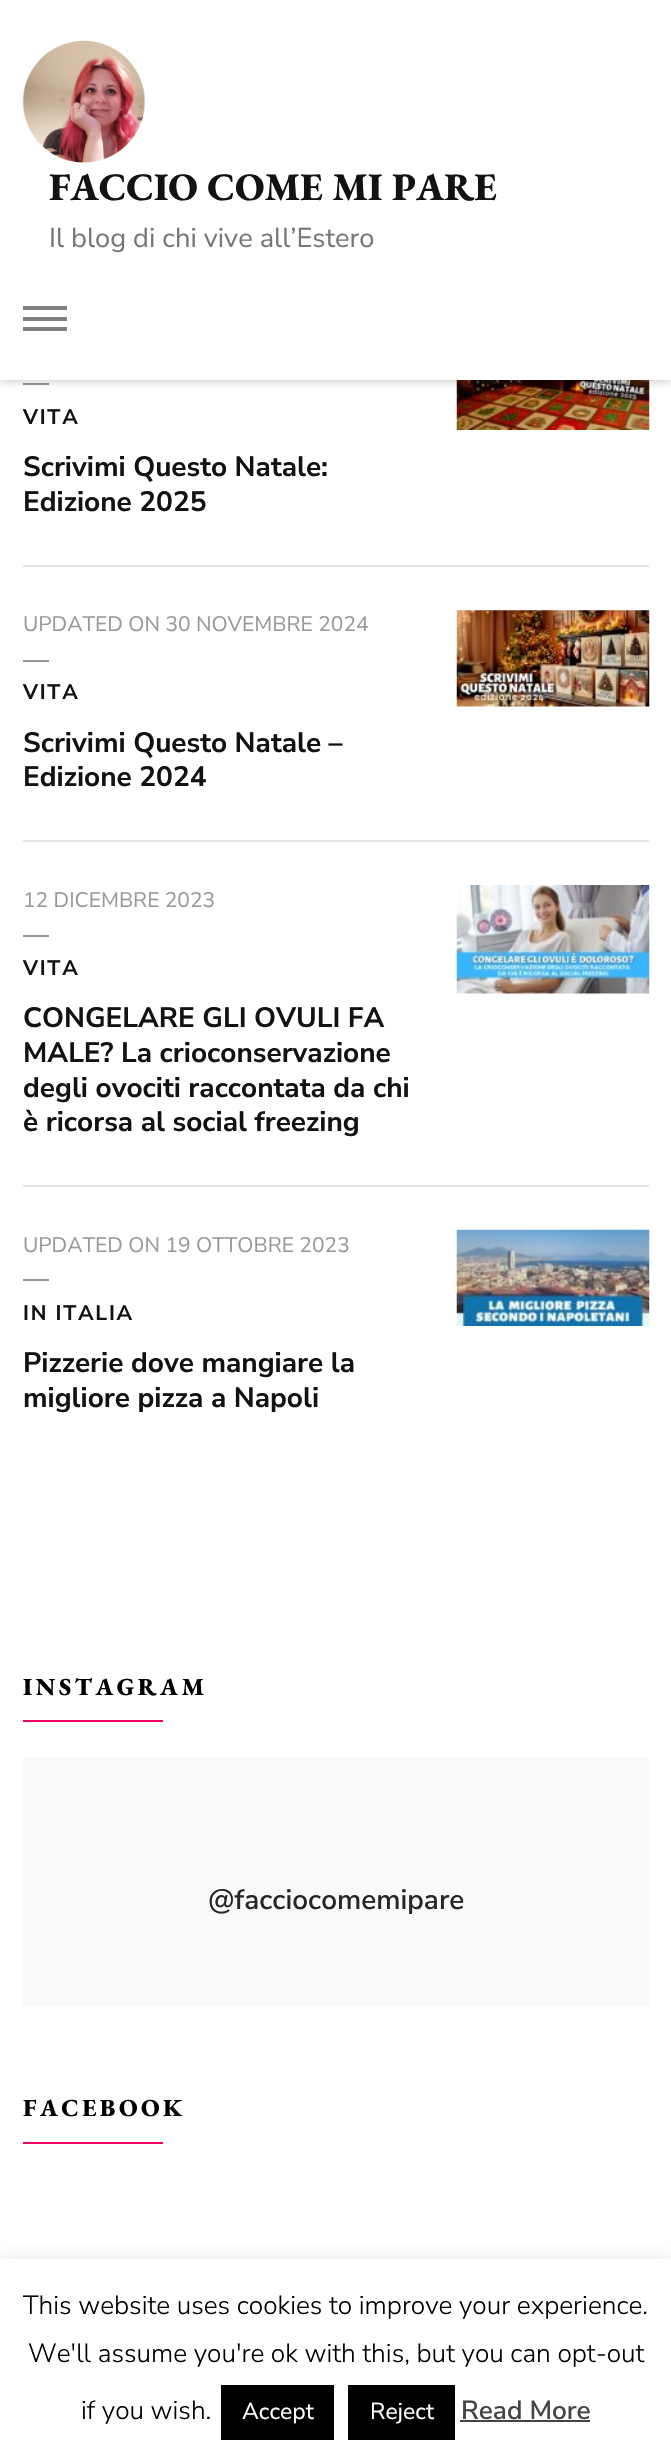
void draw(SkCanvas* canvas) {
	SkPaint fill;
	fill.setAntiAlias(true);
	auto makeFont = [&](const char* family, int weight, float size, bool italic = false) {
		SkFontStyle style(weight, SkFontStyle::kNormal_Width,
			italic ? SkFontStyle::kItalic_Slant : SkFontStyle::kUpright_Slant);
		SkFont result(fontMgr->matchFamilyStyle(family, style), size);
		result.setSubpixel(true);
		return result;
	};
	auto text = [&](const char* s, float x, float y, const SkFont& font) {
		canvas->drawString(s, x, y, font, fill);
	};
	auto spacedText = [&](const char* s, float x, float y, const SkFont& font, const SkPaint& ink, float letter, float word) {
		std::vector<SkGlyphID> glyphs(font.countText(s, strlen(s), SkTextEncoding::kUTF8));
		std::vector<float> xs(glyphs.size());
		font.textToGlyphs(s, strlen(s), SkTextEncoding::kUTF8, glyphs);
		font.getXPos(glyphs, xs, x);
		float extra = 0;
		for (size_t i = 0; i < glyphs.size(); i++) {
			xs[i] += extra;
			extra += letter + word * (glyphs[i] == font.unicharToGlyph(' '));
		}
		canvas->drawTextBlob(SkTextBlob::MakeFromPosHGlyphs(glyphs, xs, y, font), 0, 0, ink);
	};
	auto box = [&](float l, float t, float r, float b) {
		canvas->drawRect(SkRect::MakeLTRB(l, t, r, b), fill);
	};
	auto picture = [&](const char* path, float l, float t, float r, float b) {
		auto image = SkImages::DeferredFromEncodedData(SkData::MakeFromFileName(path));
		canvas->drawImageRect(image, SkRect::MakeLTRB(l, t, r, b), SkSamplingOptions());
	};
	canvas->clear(0xFFFFFFFF);
	fill.setColor(0xFF999999);
	box(23, 383, 49, 385);
	picture("image1.png", 456, 380, 650, 430);
	fill.setColor(0x26000000);
	fill.setMaskFilter(SkMaskFilter::MakeBlur(kNormal_SkBlurStyle, 3.5f));
	canvas->drawRect(SkRect::MakeLTRB(0, 4, 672, 383), fill);
	fill.setMaskFilter(nullptr);
	fill.setColor(0xFFFFFFFF);
	box(0, 0, 671, 380);
	picture("image0.png", 22, 40, 146, 163);
	fill.setColor(0xFF808080);
	box(23, 306, 67, 310);
	box(23, 317, 67, 321);
	box(23, 327, 67, 331);
	fill.setColor(0xFFE6E6E6);
	box(23, 565, 649, 567);
	box(23, 840, 649, 842);
	fill.setColor(0xFF999999);
	box(23, 660, 49, 662);
	picture("image2.png", 456, 610, 650, 707);
	fill.setColor(0xFFE6E6E6);
	box(23, 1185, 649, 1187);
	fill.setColor(0xFF999999);
	box(23, 935, 49, 937);
	picture("image3.png", 456, 885, 650, 994);
	box(23, 1279, 49, 1281);
	picture("image4.png", 456, 1229, 650, 1326);
	fill.setColor(0xFFEF0265);
	box(23, 1720, 163, 1722);
	fill.setColor(0xFFF9F9F9);
	box(23, 1757, 649, 2006);
	fill.setColor(0xFFEF0265);
	box(23, 2142, 163, 2144);
	fill.setColor(0x4DACABAB);
	fill.setMaskFilter(SkMaskFilter::MakeBlur(kNormal_SkBlurStyle, 9));
	canvas->drawRect(SkRect::MakeLTRB(0, 2258, 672, 2459), fill);
	fill.setMaskFilter(nullptr);
	fill.setColor(0xFFFFFFFF);
	box(0, 2259, 671, 2459);
	fill.setColor(0xFF000000);
	box(221, 2385, 334, 2440);
	box(348, 2385, 455, 2440);
	fill.setColor(0xFF444444);
	box(460, 2420, 590, 2422);
	auto font1 = makeFont("EB Garamond", 800, 38.9f);
	fill.setColor(0xFF121212);
	text("FACCIO COME MI PARE", 49, 200, font1);
	auto font2 = makeFont("Nunito Sans", 400, 27.25f);
	fill.setColor(0xFF777777);
	text("Il blog di chi vive all’Estero", 49, 247, font2);
	auto font3 = makeFont("Nunito Sans", 700, 21);
	fill.setColor(0xFF121212);
	spacedText("VITA", 23, 424, font3, fill, 1.75f, 0);
	auto font4 = makeFont("Nunito Sans", 700, 28);
	text("Scrivimi Questo Natale:", 23, 476, font4);
	text("Edizione 2025", 23, 511, font4);
	auto font5 = makeFont("Nunito Sans", 400, 21);
	fill.setColor(0xFF999999);
	text("UPDATED ON 30 NOVEMBRE 2024", 23, 631, font5);
	fill.setColor(0xFF121212);
	spacedText("VITA", 23, 699, font3, fill, 1.75f, 0);
	text("Scrivimi Questo Natale –", 23, 752, font4);
	text("Edizione 2024", 23, 786, font4);
	fill.setColor(0xFF999999);
	text("12 DICEMBRE 2023", 23, 907, font5);
	fill.setColor(0xFF121212);
	spacedText("VITA", 23, 975, font3, fill, 1.75f, 0);
	text("CONGELARE GLI OVULI FA", 23, 1027, font4);
	text("MALE? La crioconservazione", 23, 1062, font4);
	text("degli ovociti raccontata da chi", 23, 1097, font4);
	text("è ricorsa al social freezing", 23, 1131, font4);
	fill.setColor(0xFF999999);
	text("UPDATED ON 19 OTTOBRE 2023", 23, 1252, font5);
	fill.setColor(0xFF121212);
	spacedText("IN ITALIA", 23, 1320, font3, fill, 1.75f, 0);
	text("Pizzerie dove mangiare la", 23, 1372, font4);
	text("migliore pizza a Napoli", 23, 1407, font4);
	auto font6 = makeFont("EB Garamond", 800, 24.5f);
	fill.setColor(0xFF000000);
	spacedText("INSTAGRAM", 23, 1695, font6, fill, 3.5f, 0);
	auto font7 = makeFont("Nunito Sans", 600, 28);
	fill.setColor(0xFF262626);
	text("@facciocomemipare", 208, 1909, font7);
	fill.setColor(0xFF000000);
	spacedText("FACEBOOK", 23, 2116, font6, fill, 3.5f, 0);
	auto font8 = makeFont("Nunito Sans", 300, 26.25f);
	text("This website uses cookies to improve your experience.", 23, 2314, font8);
	text("We'll assume you're ok with this, but you can opt-out", 28, 2362, font8);
	text("if you wish.", 81, 2419, font8);
	auto font9 = makeFont("Nunito Sans", 400, 23);
	fill.setColor(0xFFFFFFFF);
	text("Accept", 242, 2419, font9);
	text("Reject", 370, 2419, font9);
	auto font10 = makeFont("Nunito Sans", 600, 26.25f);
	fill.setColor(0xFF444444);
	text("Read More", 461, 2419, font10);
}
